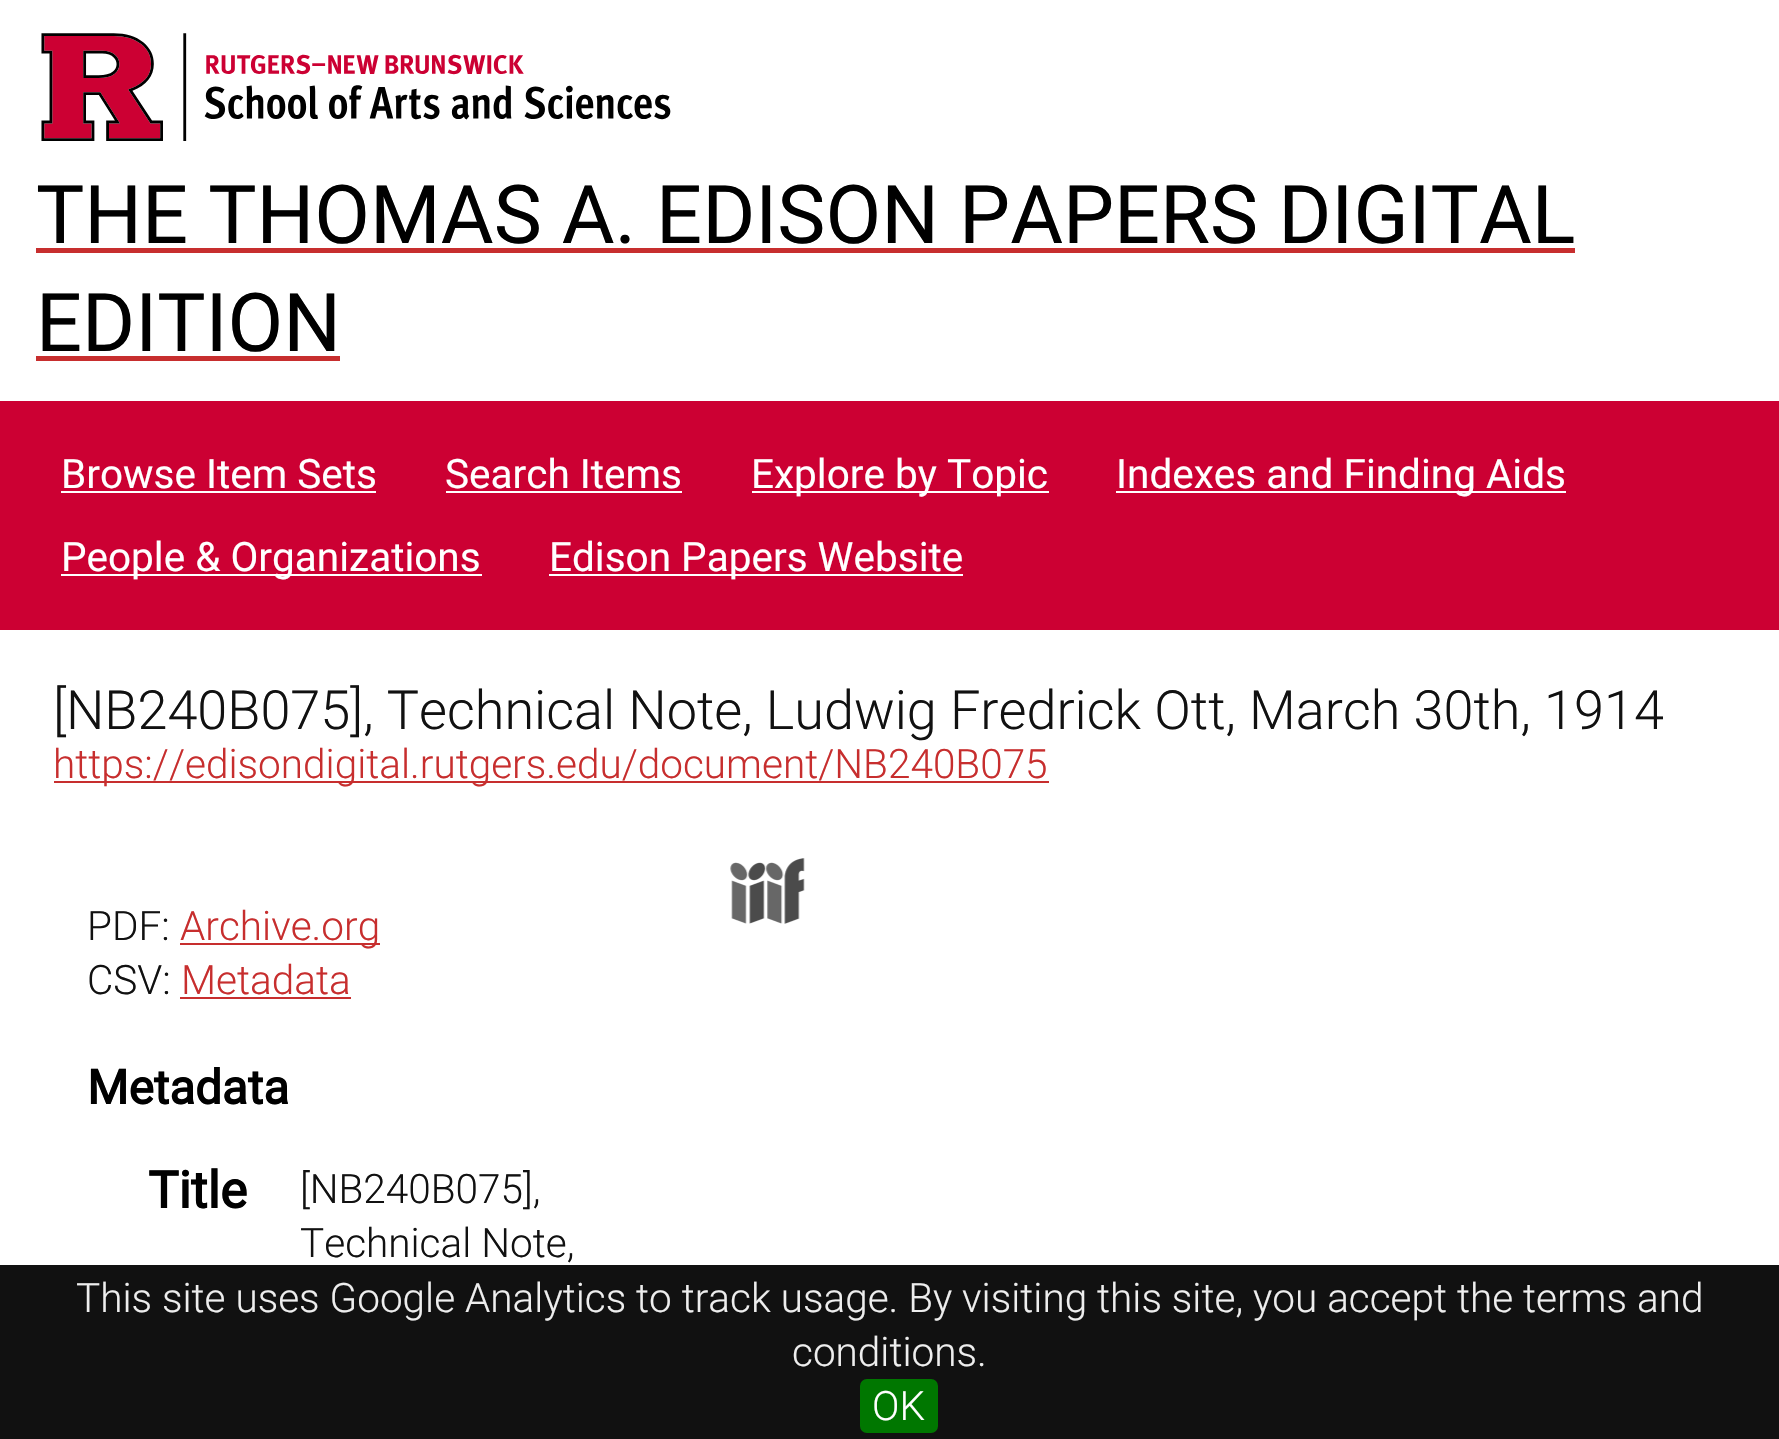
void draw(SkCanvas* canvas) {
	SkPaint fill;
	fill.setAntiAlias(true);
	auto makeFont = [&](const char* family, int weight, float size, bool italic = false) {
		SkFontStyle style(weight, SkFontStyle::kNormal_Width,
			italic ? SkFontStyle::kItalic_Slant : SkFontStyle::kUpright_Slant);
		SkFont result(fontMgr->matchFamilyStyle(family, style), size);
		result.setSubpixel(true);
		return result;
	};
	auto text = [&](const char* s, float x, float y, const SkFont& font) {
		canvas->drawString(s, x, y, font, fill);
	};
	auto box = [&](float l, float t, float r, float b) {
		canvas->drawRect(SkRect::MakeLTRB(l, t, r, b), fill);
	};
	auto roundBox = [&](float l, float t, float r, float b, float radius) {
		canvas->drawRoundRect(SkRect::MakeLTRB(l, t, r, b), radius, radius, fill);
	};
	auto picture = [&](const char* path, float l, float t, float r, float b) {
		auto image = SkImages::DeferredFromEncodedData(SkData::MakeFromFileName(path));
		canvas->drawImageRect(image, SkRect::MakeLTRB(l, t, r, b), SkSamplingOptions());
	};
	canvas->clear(0xFFFFFFFF);
	picture("image0.png", 41, 33, 671, 141);
	fill.setColor(0xFFC72E2E);
	box(36, 248, 1575, 253);
	box(36, 356, 340, 361);
	fill.setColor(0xFFCC0033);
	box(0, 401, 1779, 630);
	fill.setColor(0xFFFFFFFF);
	box(61, 491, 376, 493);
	box(446, 491, 682, 493);
	box(752, 491, 1049, 493);
	box(1116, 491, 1566, 493);
	box(61, 574, 482, 576);
	box(549, 574, 963, 576);
	fill.setColor(0xFFC72E2E);
	box(54, 781, 1049, 783);
	picture("image1.png", 730, 858, 805, 924);
	box(180, 943, 380, 945);
	box(180, 997, 351, 999);
	fill.setColor(0xFF111111);
	box(0, 1265, 1779, 1439);
	fill.setColor(0xFF007700);
	roundBox(860, 1379, 938, 1433, 7);
	auto font1 = makeFont("Roboto", 400, 81);
	fill.setColor(0xFF000000);
	text("THE THOMAS A. EDISON PAPERS DIGITAL", 36, 243, font1);
	text("EDITION", 36, 351, font1);
	auto font2 = makeFont("Roboto", 400, 40.5f);
	fill.setColor(0xFFFFFFFF);
	text("Browse Item Sets", 61, 488, font2);
	text("Search Items", 445, 488, font2);
	text("Explore by Topic", 751, 488, font2);
	text("Indexes and Finding Aids", 1116, 488, font2);
	text("People & Organizations", 61, 571, font2);
	text("Edison Papers Website", 549, 571, font2);
	auto font3 = makeFont("Roboto", 300, 54);
	fill.setColor(0xFF111111);
	text("[NB240B075], Technical Note, Ludwig Fredrick Ott, March 30th, 1914", 53, 729, font3);
	auto font4 = makeFont("Roboto", 300, 40.5f);
	fill.setColor(0xFFC72E2E);
	text("https://edisondigital.rutgers.edu/document/NB240B075", 53, 778, font4);
	fill.setColor(0xFF111111);
	text("PDF:", 87, 940, font4);
	fill.setColor(0xFFC72E2E);
	text("Archive.org", 180, 940, font4);
	fill.setColor(0xFF111111);
	text("CSV:", 87, 994, font4);
	fill.setColor(0xFFC72E2E);
	text("Metadata", 181, 994, font4);
	auto font5 = makeFont("Roboto", 700, 47.5f);
	fill.setColor(0xFF000000);
	text("Metadata", 87, 1104, font5);
	auto font6 = makeFont("Roboto", 700, 51);
	text("Title", 148, 1208, font6);
	fill.setColor(0xFF111111);
	text("[NB240B075],", 300, 1203, font4);
	text("Technical Note,", 300, 1257, font4);
	fill.setColor(0xFFEEEEEE);
	text("This site uses Google Analytics to track usage. By visiting this site, you accept the terms and", 76, 1312, font4);
	text("conditions.", 792, 1366, font4);
	fill.setColor(0xFFFFFFFF);
	text("OK", 872, 1420, font4);
}
